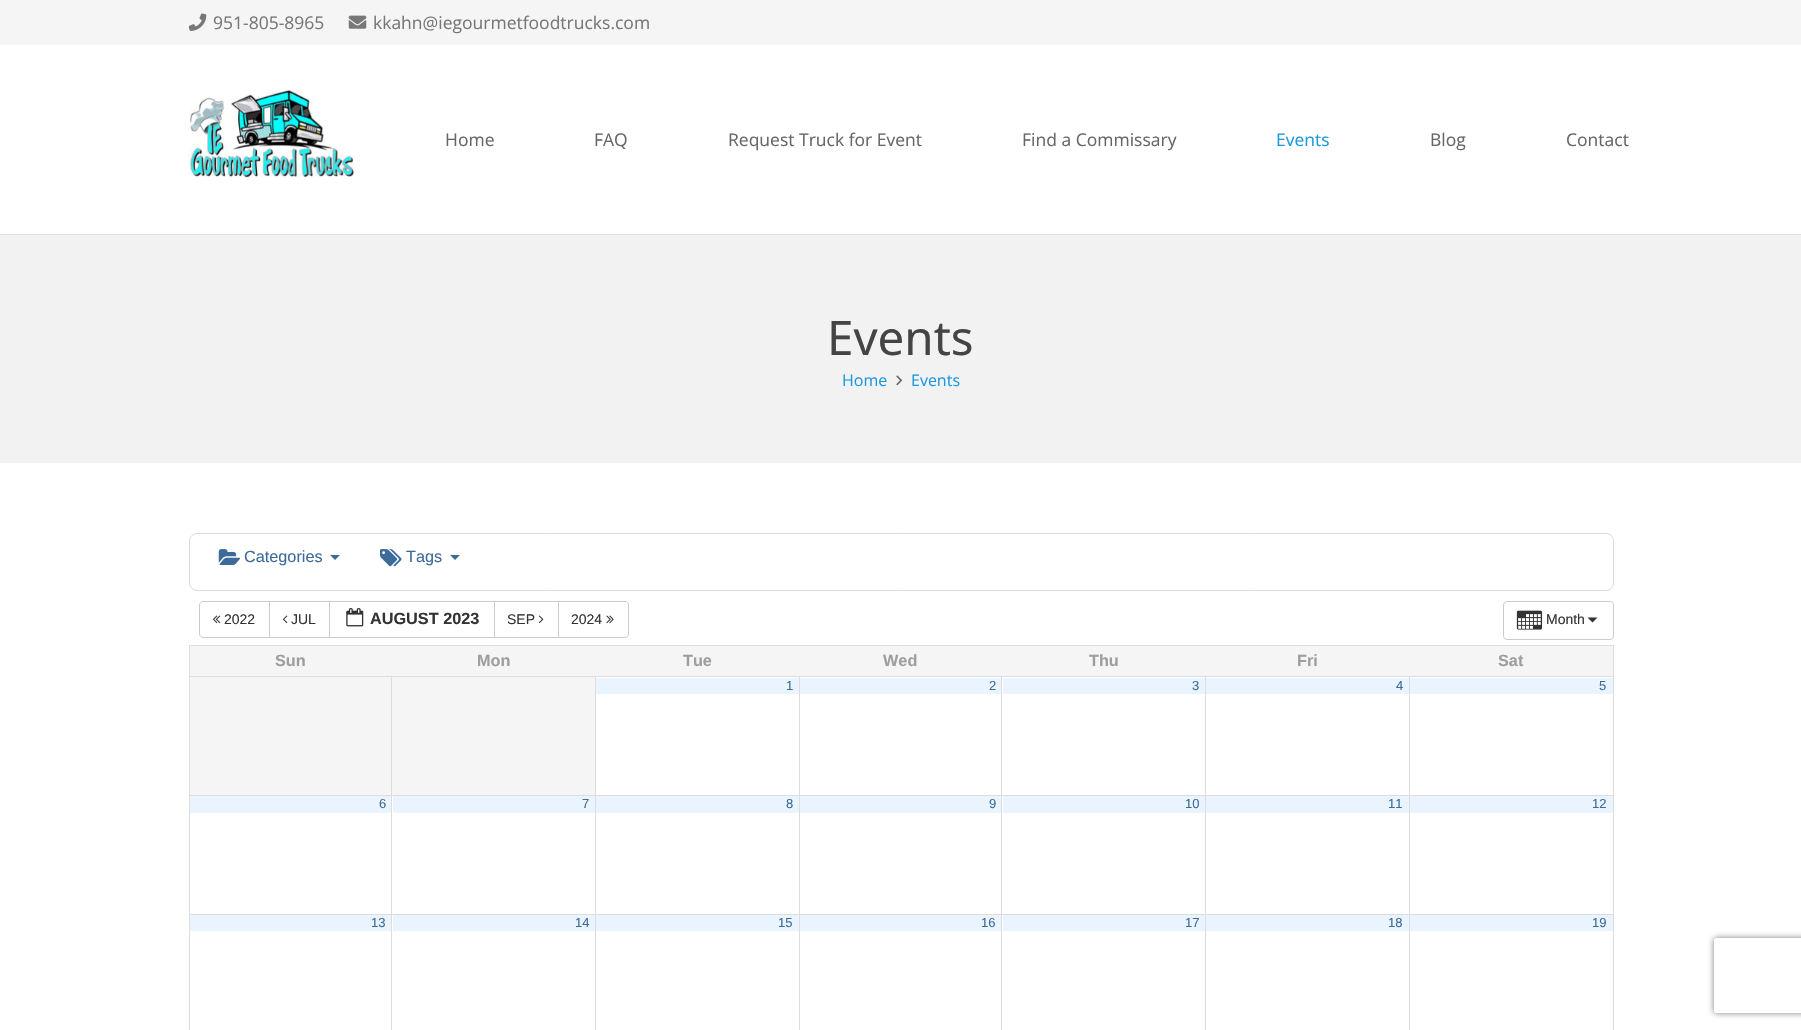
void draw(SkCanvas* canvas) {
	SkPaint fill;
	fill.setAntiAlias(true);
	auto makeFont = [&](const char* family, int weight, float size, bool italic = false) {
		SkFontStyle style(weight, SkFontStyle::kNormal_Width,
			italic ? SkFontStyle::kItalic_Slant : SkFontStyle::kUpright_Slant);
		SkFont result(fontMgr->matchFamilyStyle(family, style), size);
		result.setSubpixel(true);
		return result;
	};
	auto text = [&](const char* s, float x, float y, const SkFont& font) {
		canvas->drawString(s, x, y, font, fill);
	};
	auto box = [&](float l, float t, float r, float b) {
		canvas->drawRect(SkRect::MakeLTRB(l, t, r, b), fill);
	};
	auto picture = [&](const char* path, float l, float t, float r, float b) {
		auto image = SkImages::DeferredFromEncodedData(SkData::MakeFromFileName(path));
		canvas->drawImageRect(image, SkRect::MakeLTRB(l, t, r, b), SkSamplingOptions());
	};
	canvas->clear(0xFFFFFFFF);
	fill.setColor(0xFFF5F5F5);
	box(0, 0, 1801, 45);
	picture("image0.png", 188, 13, 207, 31);
	picture("image1.png", 348, 15, 367, 29);
	fill.setColor(0xFFDFDFDF);
	box(0, 234, 1801, 235);
	picture("image2.png", 188, 89, 354, 178);
	fill.setColor(0xFFF2F2F2);
	box(0, 235, 1801, 463);
	picture("image3.png", 896, 375, 903, 386);
	fill.setStyle(SkPaint::kStroke_Style);
	fill.setStrokeWidth(1);
	fill.setColor(0xFFDBDBDB);
	canvas->drawRoundRect(SkRect::MakeLTRB(189.5f, 533.5f, 1613.5f, 590.5f), 7.5f, 7.5f, fill);
	picture("image4.png", 218, 549, 240, 565);
	fill.setStyle(SkPaint::kFill_Style);
	fill.setColor(0xFF3D6B99);
	canvas->drawPath(SkPathBuilder().moveTo(330, 555).lineTo(340, 555).lineTo(335, 560).close().detach(), fill);
	picture("image5.png", 380, 549, 402, 567);
	canvas->drawPath(SkPathBuilder().moveTo(450, 555).lineTo(460, 555).lineTo(455, 560).close().detach(), fill);
	fill.setStyle(SkPaint::kStroke_Style);
	fill.setColor(0xFFCCCCCC);
	canvas->drawPath(SkPathBuilder().moveTo(203, 601.5f).lineTo(269.5f, 601.5f).lineTo(269.5f, 637.5f).lineTo(203, 637.5f).cubicTo(201, 637.5f, 199.5f, 636, 199.5f, 634).lineTo(199.5f, 605).cubicTo(199.5f, 603, 201, 601.5f, 203, 601.5f).close().detach(), fill);
	picture("image6.png", 212, 615, 221, 624);
	canvas->drawRect(SkRect::MakeLTRB(269.5f, 601.5f, 329.5f, 637.5f), fill);
	picture("image7.png", 282, 615, 288, 624);
	canvas->drawRect(SkRect::MakeLTRB(329.5f, 601.5f, 494.5f, 637.5f), fill);
	picture("image8.png", 346, 608, 364, 627);
	canvas->drawRect(SkRect::MakeLTRB(494.5f, 601.5f, 558.5f, 637.5f), fill);
	picture("image9.png", 538, 615, 544, 624);
	fill.setStyle(SkPaint::kFill_Style);
	fill.setColor(0xFFFFFFFF);
	canvas->drawPath(SkPathBuilder().moveTo(558.5f, 601.5f).lineTo(625, 601.5f).cubicTo(627, 601.5f, 628.5f, 603, 628.5f, 605).lineTo(628.5f, 634).cubicTo(628.5f, 636, 627, 637.5f, 625, 637.5f).lineTo(558.5f, 637.5f).close().detach(), fill);
	fill.setStyle(SkPaint::kStroke_Style);
	fill.setColor(0xFFCCCCCC);
	canvas->drawPath(SkPathBuilder().moveTo(558.5f, 601.5f).lineTo(625, 601.5f).cubicTo(627, 601.5f, 628.5f, 603, 628.5f, 605).lineTo(628.5f, 634).cubicTo(628.5f, 636, 627, 637.5f, 625, 637.5f).lineTo(558.5f, 637.5f).close().detach(), fill);
	picture("image10.png", 606, 615, 614, 624);
	canvas->drawRoundRect(SkRect::MakeLTRB(1503.5f, 601.5f, 1613.5f, 639.5f), 3.5f, 3.5f, fill);
	picture("image11.png", 1516, 610, 1543, 630);
	fill.setStyle(SkPaint::kFill_Style);
	fill.setColor(0xFF333333);
	canvas->drawPath(SkPathBuilder().moveTo(1587.5f, 617.5f).lineTo(1597.5f, 617.5f).lineTo(1592.5f, 622.5f).close().detach(), fill);
	fill.setColor(0xFFDDDDDD);
	box(189, 645, 1614, 646);
	box(1613, 645, 1614, 1030);
	box(189, 645, 190, 1030);
	fill.setColor(0xFFF5F5F5);
	box(190, 646, 1613, 676);
	box(190, 677, 595, 795);
	fill.setColor(0xFFDDDDDD);
	box(1409, 676, 1614, 677);
	box(1409, 795, 1614, 796);
	box(1409, 914, 1614, 915);
	box(1409, 914, 1410, 1030);
	box(1205, 914, 1410, 915);
	box(1409, 795, 1410, 915);
	box(1205, 795, 1410, 796);
	box(1409, 676, 1410, 796);
	box(1205, 676, 1410, 677);
	box(1205, 914, 1206, 1030);
	box(1001, 914, 1206, 915);
	box(1205, 795, 1206, 915);
	box(1001, 795, 1206, 796);
	box(1205, 676, 1206, 796);
	box(1001, 676, 1206, 677);
	box(1001, 914, 1002, 1030);
	box(799, 914, 1003, 915);
	box(1001, 795, 1002, 915);
	box(799, 795, 1003, 796);
	box(1001, 676, 1002, 796);
	box(799, 676, 1003, 677);
	box(799, 914, 800, 1030);
	box(595, 914, 800, 915);
	box(799, 795, 800, 915);
	box(595, 795, 800, 796);
	box(799, 676, 800, 796);
	box(595, 676, 800, 677);
	box(595, 914, 596, 1030);
	box(391, 914, 596, 915);
	box(595, 795, 596, 915);
	box(391, 795, 596, 796);
	box(595, 676, 596, 796);
	box(391, 676, 596, 677);
	box(391, 914, 392, 1030);
	box(189, 914, 393, 915);
	box(391, 795, 392, 915);
	box(189, 795, 393, 796);
	box(391, 676, 392, 796);
	box(189, 676, 393, 677);
	fill.setColor(0xFFEAF4FF);
	box(596, 678, 799, 694);
	box(800, 678, 1001, 694);
	box(1003, 678, 1205, 694);
	box(1206, 678, 1409, 694);
	box(1410, 678, 1613, 694);
	box(190, 796, 391, 813);
	box(393, 796, 595, 813);
	box(596, 796, 799, 813);
	box(800, 796, 1001, 813);
	box(1003, 796, 1205, 813);
	box(1206, 796, 1409, 813);
	box(1410, 796, 1613, 813);
	box(190, 915, 391, 931);
	box(393, 915, 595, 931);
	box(596, 915, 799, 931);
	box(800, 915, 1001, 931);
	box(1003, 915, 1205, 931);
	box(1206, 915, 1409, 931);
	box(1410, 915, 1613, 931);
	canvas->save();
	canvas->clipPath(SkPathBuilder(SkPathFillType::kEvenOdd).moveTo(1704, 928).lineTo(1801, 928).lineTo(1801, 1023).lineTo(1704, 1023).close().moveTo(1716.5f, 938).lineTo(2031.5f, 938).cubicTo(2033, 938, 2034, 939, 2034, 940.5f).lineTo(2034, 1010.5f).cubicTo(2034, 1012, 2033, 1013, 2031.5f, 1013).lineTo(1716.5f, 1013).cubicTo(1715, 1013, 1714, 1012, 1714, 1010.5f).lineTo(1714, 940.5f).cubicTo(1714, 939, 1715, 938, 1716.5f, 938).close().detach(), true);
	fill.setColor(0xFF808080);
	fill.setMaskFilter(SkMaskFilter::MakeBlur(kNormal_SkBlurStyle, 3));
	canvas->drawRoundRect(SkRect::MakeLTRB(1714, 938, 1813, 1013), 2.5f, 2.5f, fill);
	fill.setMaskFilter(nullptr);
	canvas->restore();
	auto font1 = makeFont("Open Sans", 400, 17.5f);
	fill.setColor(0xFF777777);
	text("951-805-8965", 213, 29, font1);
	text("kkahn@iegourmetfoodtrucks.com", 373, 29, font1);
	fill.setColor(0xFF666666);
	text("Home", 445, 146, font1);
	text("FAQ", 594, 146, font1);
	text("Request Truck for Event", 728, 146, font1);
	text("Find a Commissary", 1022, 146, font1);
	fill.setColor(0xFF1B98E0);
	text("Events", 1276, 146, font1);
	fill.setColor(0xFF666666);
	text("Blog", 1430, 146, font1);
	text("Contact", 1566, 146, font1);
	auto font2 = makeFont("Noto Sans", 400, 47.5f);
	fill.setColor(0xFF444444);
	text("Events", 827, 355, font2);
	auto font3 = makeFont("Open Sans", 400, 16);
	fill.setColor(0xFF1B98E0);
	text("Home", 842, 386, font3);
	text("Events", 911, 386, font3);
	auto font4 = makeFont("Liberation Sans", 400, 16.25f);
	fill.setColor(0xFF3D6B99);
	text("Categories", 244, 562, font4);
	text("Tags", 406, 562, font4);
	auto font5 = makeFont("Liberation Sans", 400, 14);
	fill.setColor(0xFF333333);
	text("2022", 224, 624, font5);
	text("JUL", 291, 624, font5);
	auto font6 = makeFont("Liberation Sans", 700, 16.25f);
	text("AUGUST 2023", 370, 624, font6);
	text("SEP", 507, 624, font5);
	text("2024", 571, 624, font5);
	text("Month", 1546, 624, font5);
	fill.setColor(0xFF9E9E9E);
	text("Sun", 275, 666, font6);
	text("Mon", 477, 666, font6);
	text("Tue", 683, 666, font6);
	text("Wed", 883, 666, font6);
	text("Thu", 1089, 666, font6);
	text("Fri", 1297, 666, font6);
	text("Sat", 1498, 666, font6);
	auto font7 = makeFont("Liberation Sans", 400, 13);
	fill.setColor(0xFF3D6B99);
	text("1", 786, 690, font7);
	text("2", 989, 690, font7);
	text("3", 1192, 690, font7);
	text("4", 1396, 690, font7);
	text("5", 1599, 690, font7);
	text("6", 379, 808, font7);
	text("7", 582, 808, font7);
	text("8", 786, 808, font7);
	text("9", 989, 808, font7);
	text("10", 1185, 808, font7);
	text("11", 1388, 808, font7);
	text("12", 1592, 808, font7);
	text("13", 371, 927, font7);
	text("14", 575, 927, font7);
	text("15", 778, 927, font7);
	text("16", 981, 927, font7);
	text("17", 1185, 927, font7);
	text("18", 1388, 927, font7);
	text("19", 1592, 927, font7);
}
